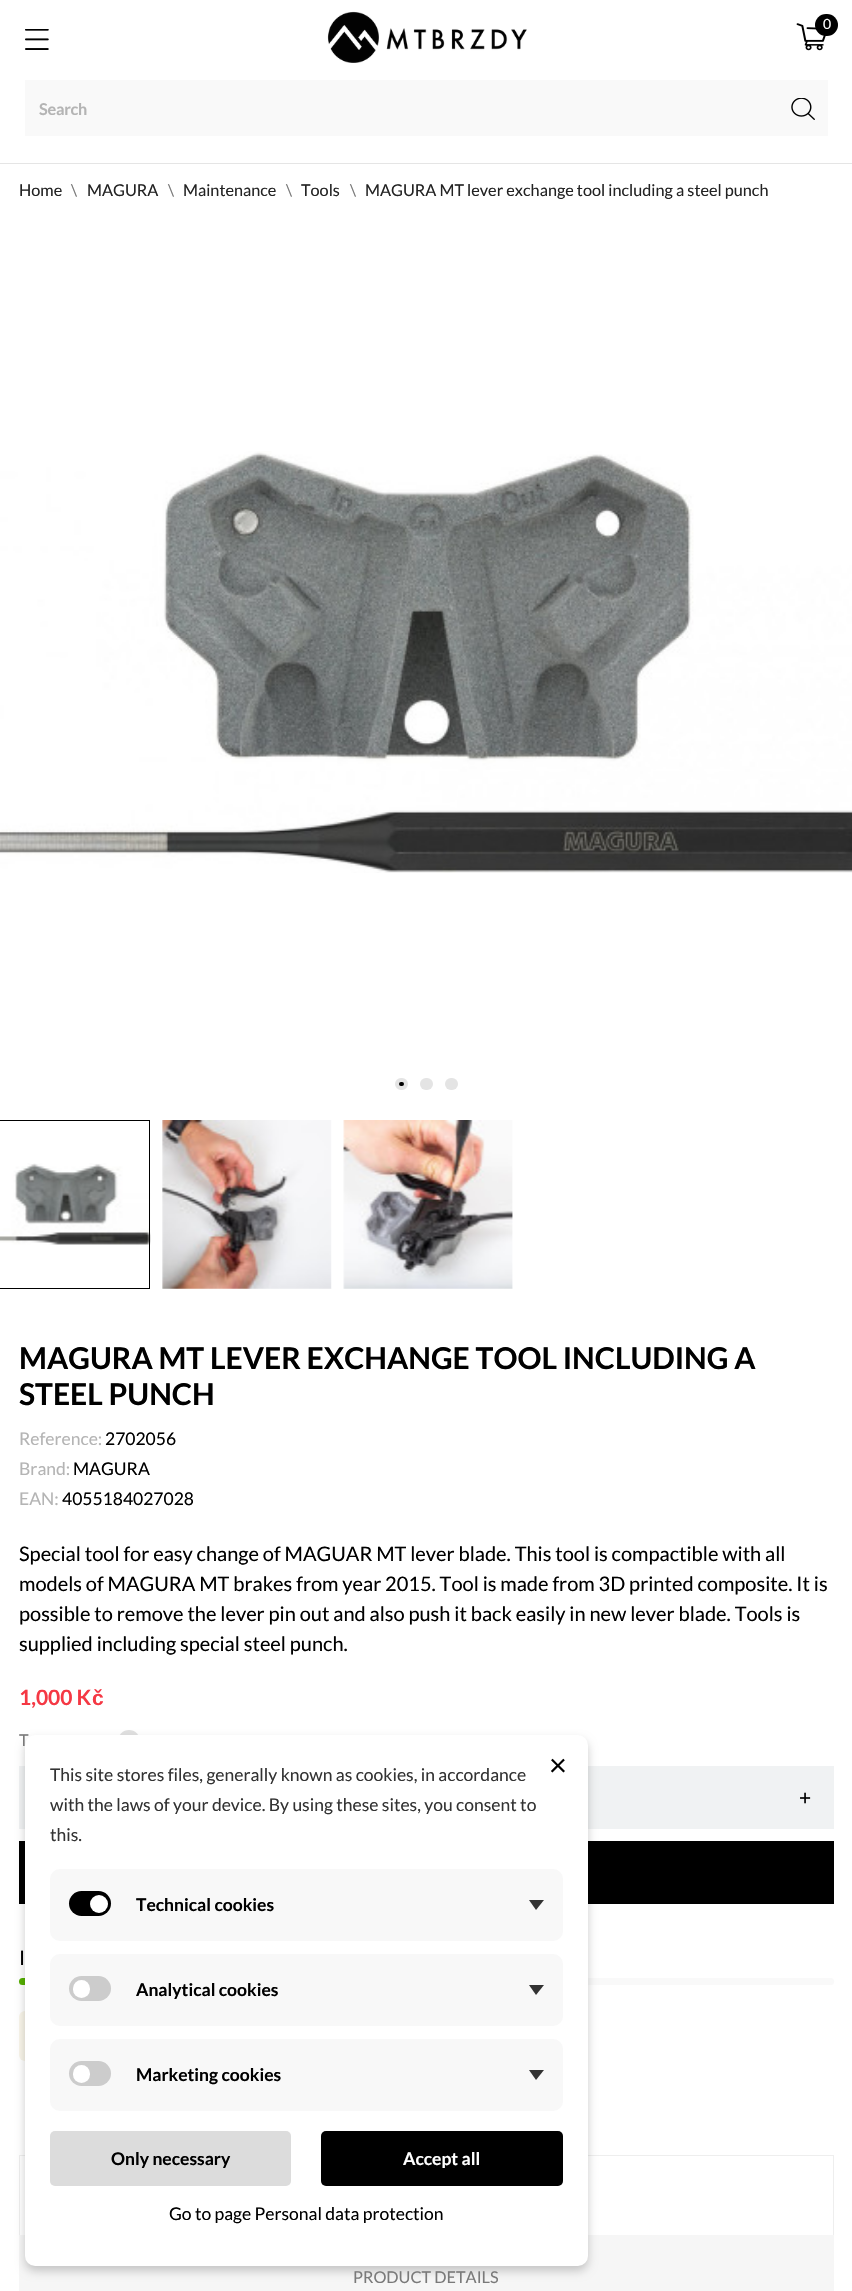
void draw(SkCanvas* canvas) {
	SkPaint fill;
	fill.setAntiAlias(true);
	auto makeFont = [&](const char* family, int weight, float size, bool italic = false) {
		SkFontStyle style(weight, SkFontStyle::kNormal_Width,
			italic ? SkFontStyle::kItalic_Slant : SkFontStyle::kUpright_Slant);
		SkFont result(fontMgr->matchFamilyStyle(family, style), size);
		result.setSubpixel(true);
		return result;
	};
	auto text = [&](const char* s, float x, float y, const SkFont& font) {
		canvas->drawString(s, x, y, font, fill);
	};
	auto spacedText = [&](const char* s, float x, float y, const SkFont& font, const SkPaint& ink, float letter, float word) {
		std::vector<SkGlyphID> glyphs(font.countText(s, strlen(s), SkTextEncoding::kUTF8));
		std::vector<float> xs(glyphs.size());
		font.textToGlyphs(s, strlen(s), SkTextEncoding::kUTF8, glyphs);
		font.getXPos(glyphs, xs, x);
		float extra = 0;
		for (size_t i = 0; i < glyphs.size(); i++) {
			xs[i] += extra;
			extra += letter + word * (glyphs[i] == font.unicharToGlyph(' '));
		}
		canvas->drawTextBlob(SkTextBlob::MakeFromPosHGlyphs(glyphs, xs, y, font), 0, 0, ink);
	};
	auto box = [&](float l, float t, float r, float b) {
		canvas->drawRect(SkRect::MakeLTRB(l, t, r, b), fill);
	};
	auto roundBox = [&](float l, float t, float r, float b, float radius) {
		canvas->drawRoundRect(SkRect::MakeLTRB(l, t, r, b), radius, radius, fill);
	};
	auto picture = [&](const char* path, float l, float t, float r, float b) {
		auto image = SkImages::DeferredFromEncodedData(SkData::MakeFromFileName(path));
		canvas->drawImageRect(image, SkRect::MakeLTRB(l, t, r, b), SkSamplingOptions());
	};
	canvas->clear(0xFFFFFFFF);
	fill.setColor(0xFFE5E5E5);
	box(0, 163, 852, 164);
	picture("image0.png", 327, 11, 527, 63);
	picture("image1.png", 796, 23, 826, 51);
	fill.setColor(0xFF000000);
	roundBox(815, 14, 838, 36, 11);
	picture("image2.png", 25, 29, 49, 50);
	fill.setColor(0xFFF9F9F9);
	box(25, 80, 828, 136);
	picture("image3.png", 791, 98, 815, 120);
	picture("image4.png", 0, 451, 852, 873);
	fill.setColor(0xFF000000);
	canvas->drawRoundRect(SkRect::MakeLTRB(397, 1080, 406, 1088), 4, 4, fill);
	fill.setStyle(SkPaint::kStroke_Style);
	fill.setStrokeWidth(4);
	fill.setColor(0xFFE4E4E4);
	canvas->drawRoundRect(SkRect::MakeLTRB(397, 1080, 406, 1088), 4, 4, fill);
	fill.setStyle(SkPaint::kFill_Style);
	roundBox(420, 1078, 433, 1090, 6);
	roundBox(445, 1078, 458, 1090, 6);
	picture("image5.png", 0, 1163, 151, 1245);
	fill.setStyle(SkPaint::kStroke_Style);
	fill.setStrokeWidth(1);
	fill.setColor(0xFF000000);
	canvas->drawRect(SkRect::MakeLTRB(-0.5f, 1120.5f, 149.5f, 1288.5f), fill);
	picture("image6.png", 162, 1120, 332, 1289);
	picture("image7.png", 343, 1120, 513, 1289);
	fill.setStyle(SkPaint::kFill_Style);
	fill.setColor(0xFFE0E0E0);
	roundBox(118, 1730, 140, 1753, 11);
	fill.setColor(0xFFF0F2F3);
	box(19, 1766, 25, 1829);
	box(588, 1766, 834, 1829);
	fill.setColor(0xFF000000);
	box(19, 1841, 834, 1904);
	fill.setColor(0xFFF9F9F9);
	roundBox(19, 1978, 834, 1985, 3.5f);
	fill.setColor(0xFF54AF00);
	roundBox(19, 1978, 60, 1985, 3.5f);
	fill.setColor(0xFFF9F5E9);
	roundBox(19, 2011, 106, 2061, 6);
	fill.setColor(0xFFEEEEEE);
	box(19, 2155, 834, 2156);
	box(833, 2155, 834, 2236);
	box(19, 2155, 20, 2236);
	fill.setColor(0xFFF6F6F6);
	box(19, 2235, 834, 2291);
	fill.setColor(0x33000000);
	fill.setMaskFilter(SkMaskFilter::MakeBlur(kNormal_SkBlurStyle, 5));
	canvas->drawRoundRect(SkRect::MakeLTRB(25, 1740, 588, 2271), 10, 10, fill);
	fill.setMaskFilter(nullptr);
	auto font1 = makeFont("Lato", 400, 14);
	fill.setColor(0xFFFFFFFF);
	text("0", 823, 29, font1);
	auto font2 = makeFont("Lato", 700, 16.25f);
	fill.setColor(0xFFB4B4B4);
	spacedText("Search", 39, 115, font2, fill, -0.25f, 0);
	auto font3 = makeFont("Lato", 400, 16.25f);
	fill.setColor(0xFF232323);
	text("Home", 19, 196, font3);
	fill.setColor(0xFF7A7A7A);
	text("\\", 71, 196, font3);
	fill.setColor(0xFF232323);
	text("MAGURA", 87, 196, font3);
	fill.setColor(0xFF7A7A7A);
	text("\\", 168, 196, font3);
	fill.setColor(0xFF232323);
	text("Maintenance", 183, 196, font3);
	fill.setColor(0xFF7A7A7A);
	text("\\", 286, 196, font3);
	fill.setColor(0xFF232323);
	text("Tools", 301, 196, font3);
	fill.setColor(0xFF7A7A7A);
	text("\\", 350, 196, font3);
	fill.setColor(0xFF232323);
	text("MAGURA MT lever exchange tool including a steel punch", 365, 196, font3);
	auto font4 = makeFont("Lato", 700, 30);
	fill.setColor(0xFF000000);
	text("MAGURA MT LEVER EXCHANGE TOOL INCLUDING A", 19, 1369, font4);
	text("STEEL PUNCH", 19, 1405, font4);
	auto font5 = makeFont("Lato", 400, 17.5f);
	fill.setColor(0xFFB4B4B4);
	text("Reference:", 19, 1445, font5);
	fill.setColor(0xFF000000);
	text("2702056", 105, 1445, font5);
	fill.setColor(0xFFB4B4B4);
	text("Brand:", 19, 1475, font5);
	fill.setColor(0xFF000000);
	text("MAGURA", 73, 1475, font5);
	fill.setColor(0xFFB4B4B4);
	text("EAN:", 19, 1505, font5);
	fill.setColor(0xFF000000);
	text("4055184027028", 62, 1505, font5);
	auto font6 = makeFont("Lato", 400, 20);
	text("Special tool for easy change of MAGUAR MT lever blade. This tool is compactible with all", 19, 1561, font6);
	text("models of MAGURA MT brakes from year 2015. Tool is made from 3D printed composite. It is", 19, 1591, font6);
	text("possible to remove the lever pin out and also push it back easily in new lever blade. Tools is", 19, 1621, font6);
	text("supplied including special steel punch.", 19, 1651, font6);
	auto font7 = makeFont("Lato", 700, 21);
	fill.setColor(0xFFF53844);
	text("1,000 K", 19, 1705, font7);
	auto font8 = makeFont("Liberation Sans", 700, 21);
	text("č", 92, 1705, font8);
	fill.setColor(0xFF7A7A7A);
	text("T", 19, 1746, font3);
	auto font9 = makeFont("Lato", 400, 21);
	fill.setColor(0xFF000000);
	text("+", 799, 1805, font9);
	text("I", 19, 1965, font6);
	fill.setColor(0xFF7A7A7A);
	text("PRODUCT DETAILS", 353, 2283, font3);
	fill.setColor(0xFFFFFFFF);
	roundBox(25, 1735, 588, 2266, 10);
	auto font10 = makeFont("Lato", 400, 31);
	fill.setColor(0xFF000000);
	text("×", 549, 1776, font10);
	fill.setColor(0xFF333333);
	text("This site stores files, generally known as cookies, in accordance", 50, 1781, font5);
	text("with the laws of your device. By using these sites, you consent to", 50, 1811, font5);
	text("this.", 50, 1841, font5);
	fill.setColor(0xFFF8F8F8);
	roundBox(50, 1869, 563, 1941, 10);
	fill.setColor(0xFF000000);
	roundBox(69, 1891, 111, 1916, 12.5f);
	fill.setColor(0xFFFFFFFF);
	canvas->drawCircle(99, 1904, 9, fill);
	auto font11 = makeFont("Lato", 700, 17.5f);
	fill.setColor(0xFF000000);
	text("Technical cookies", 136, 1911, font11);
	fill.setColor(0xFF333333);
	canvas->drawPath(SkPathBuilder().moveTo(529, 1900).lineTo(544, 1900).lineTo(536, 1910).close().detach(), fill);
	fill.setColor(0xFFF8F8F8);
	roundBox(50, 1954, 563, 2026, 10);
	fill.setColor(0xFFCCCCCC);
	roundBox(69, 1976, 111, 2001, 12.5f);
	fill.setColor(0xFFFFFFFF);
	roundBox(73, 1980, 90, 1998, 8.5f);
	fill.setColor(0xFF000000);
	text("Analytical cookies", 136, 1996, font11);
	fill.setColor(0xFF333333);
	canvas->drawPath(SkPathBuilder().moveTo(529, 1985).lineTo(544, 1985).lineTo(536, 1995).close().detach(), fill);
	fill.setColor(0xFFF8F8F8);
	roundBox(50, 2039, 563, 2111, 10);
	fill.setColor(0xFFCCCCCC);
	roundBox(69, 2061, 111, 2086, 12.5f);
	fill.setColor(0xFFFFFFFF);
	roundBox(73, 2065, 90, 2083, 8.5f);
	fill.setColor(0xFF000000);
	text("Marketing cookies", 136, 2081, font11);
	fill.setColor(0xFF333333);
	canvas->drawPath(SkPathBuilder().moveTo(529, 2070).lineTo(544, 2070).lineTo(536, 2080).close().detach(), fill);
	fill.setColor(0xFFDCDCDC);
	roundBox(50, 2131, 291, 2186, 5);
	fill.setColor(0xFF000000);
	text("Only necessary", 111, 2165, font11);
	roundBox(321, 2131, 563, 2186, 5);
	fill.setColor(0xFFFFFFFF);
	text("Accept all", 403, 2165, font11);
	fill.setColor(0xFF000000);
	text("Go to page Personal data protection", 169, 2220, font5);
}
